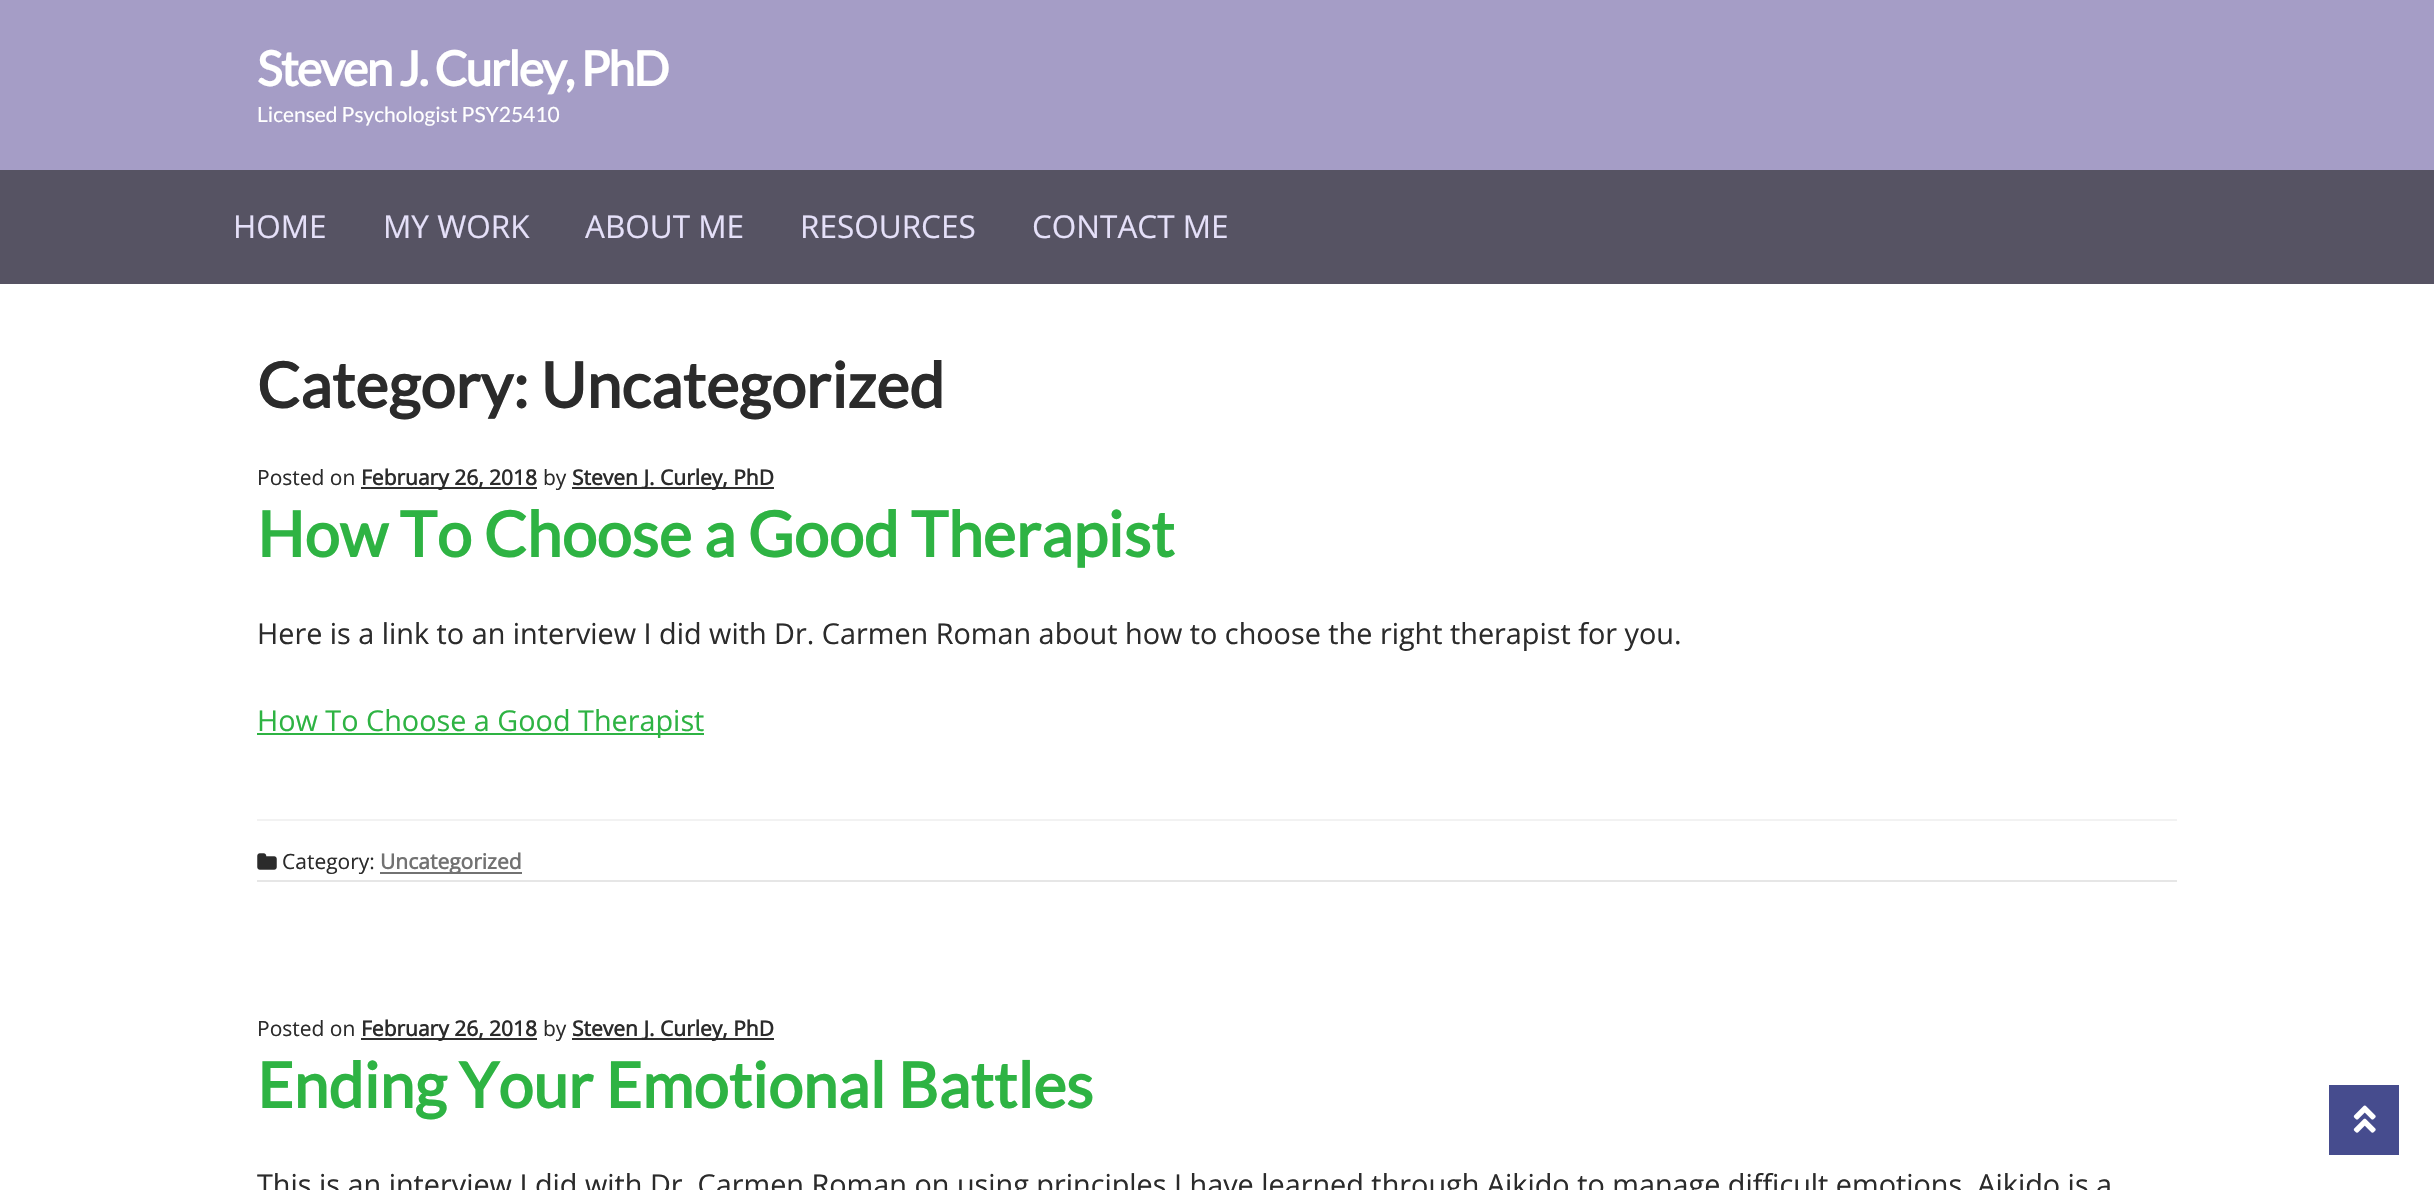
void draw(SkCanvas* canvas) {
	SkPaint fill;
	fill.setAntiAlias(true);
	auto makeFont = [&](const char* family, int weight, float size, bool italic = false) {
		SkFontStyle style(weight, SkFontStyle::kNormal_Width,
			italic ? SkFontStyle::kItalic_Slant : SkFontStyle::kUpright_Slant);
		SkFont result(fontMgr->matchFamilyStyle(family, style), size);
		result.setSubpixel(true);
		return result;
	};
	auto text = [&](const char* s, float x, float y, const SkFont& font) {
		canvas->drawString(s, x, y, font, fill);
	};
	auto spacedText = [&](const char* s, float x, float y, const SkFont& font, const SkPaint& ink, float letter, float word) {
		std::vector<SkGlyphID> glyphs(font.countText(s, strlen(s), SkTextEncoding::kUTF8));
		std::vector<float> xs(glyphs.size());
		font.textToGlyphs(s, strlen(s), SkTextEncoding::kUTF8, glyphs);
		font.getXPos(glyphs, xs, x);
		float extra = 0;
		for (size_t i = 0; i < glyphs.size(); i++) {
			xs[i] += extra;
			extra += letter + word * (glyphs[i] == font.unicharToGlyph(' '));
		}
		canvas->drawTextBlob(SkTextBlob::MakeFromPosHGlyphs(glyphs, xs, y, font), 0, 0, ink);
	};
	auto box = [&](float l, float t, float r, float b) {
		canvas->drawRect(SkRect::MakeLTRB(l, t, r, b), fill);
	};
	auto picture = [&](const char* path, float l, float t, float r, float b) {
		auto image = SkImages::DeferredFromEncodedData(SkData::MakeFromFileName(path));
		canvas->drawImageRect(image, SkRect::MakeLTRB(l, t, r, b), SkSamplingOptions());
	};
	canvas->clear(0xFFFFFFFF);
	fill.setColor(0xFFA59DC6);
	box(0, 0, 2434, 170);
	fill.setColor(0xFF565363);
	box(0, 170, 2434, 284);
	fill.setColor(0xFFE6E6E6);
	box(257, 880, 2177, 882);
	fill.setColor(0xFF303030);
	box(361, 487, 537, 489);
	box(572, 487, 774, 489);
	fill.setColor(0xFF2EB343);
	box(257, 733, 704, 735);
	fill.setColor(0xFFF2F2F2);
	box(257, 819, 2177, 821);
	picture("image0.png", 257, 853, 277, 870);
	fill.setColor(0xFF727272);
	box(380, 872, 522, 874);
	fill.setColor(0xFF303030);
	box(361, 1038, 537, 1040);
	box(572, 1038, 774, 1040);
	fill.setColor(0xFF464C8E);
	box(2329, 1085, 2399, 1155);
	picture("image1.png", 2353, 1105, 2376, 1133);
	auto font1 = makeFont("Lato", 700, 48);
	fill.setColor(0xFFFFFFFF);
	spacedText("Steven J. Curley, PhD", 257, 86, font1, fill, -1.75f, 0);
	auto font2 = makeFont("Lato", 400, 21);
	text("Licensed Psychologist PSY25410", 257, 122, font2);
	auto font3 = makeFont("Open Sans", 400, 31.5f);
	fill.setColor(0xFFE5E0F9);
	text("HOME", 233, 238, font3);
	text("MY WORK", 383, 238, font3);
	text("ABOUT ME", 585, 238, font3);
	text("RESOURCES", 800, 238, font3);
	text("CONTACT ME", 1032, 238, font3);
	auto font4 = makeFont("Lato", 700, 62.8f);
	fill.setColor(0xFF2B2B2B);
	text("Category: Uncategorized", 257, 408, font4);
	auto font5 = makeFont("Open Sans", 400, 21);
	text("Posted on", 257, 485, font5);
	auto font6 = makeFont("Open Sans", 700, 21);
	text("February 26, 2018", 361, 485, font6);
	text("by", 543, 485, font5);
	text("Steven J. Curley, PhD", 572, 485, font6);
	fill.setColor(0xFF2EB343);
	text("How To Choose a Good Therapist", 257, 557, font4);
	auto font7 = makeFont("Open Sans", 400, 28.8f);
	fill.setColor(0xFF2B2B2B);
	text("Here is a link to an interview I did with Dr. Carmen Roman about how to choose the right therapist for you.", 257, 644, font7);
	fill.setColor(0xFF2EB343);
	text("How To Choose a Good Therapist", 257, 731, font7);
	fill.setColor(0xFF2B2B2B);
	text("Category:", 282, 869, font5);
	fill.setColor(0xFF727272);
	text("Uncategorized", 380, 869, font6);
	fill.setColor(0xFF2B2B2B);
	text("Posted on", 257, 1036, font5);
	text("February 26, 2018", 361, 1036, font6);
	text("by", 543, 1036, font5);
	text("Steven J. Curley, PhD", 572, 1036, font6);
	fill.setColor(0xFF2EB343);
	text("Ending Your Emotional Battles", 257, 1108, font4);
	fill.setColor(0xFF2B2B2B);
	text("This is an interview I did with Dr. Carmen Roman on using principles I have learned through Aikido to manage difficult emotions. Aikido is a", 257, 1195, font7);
}
